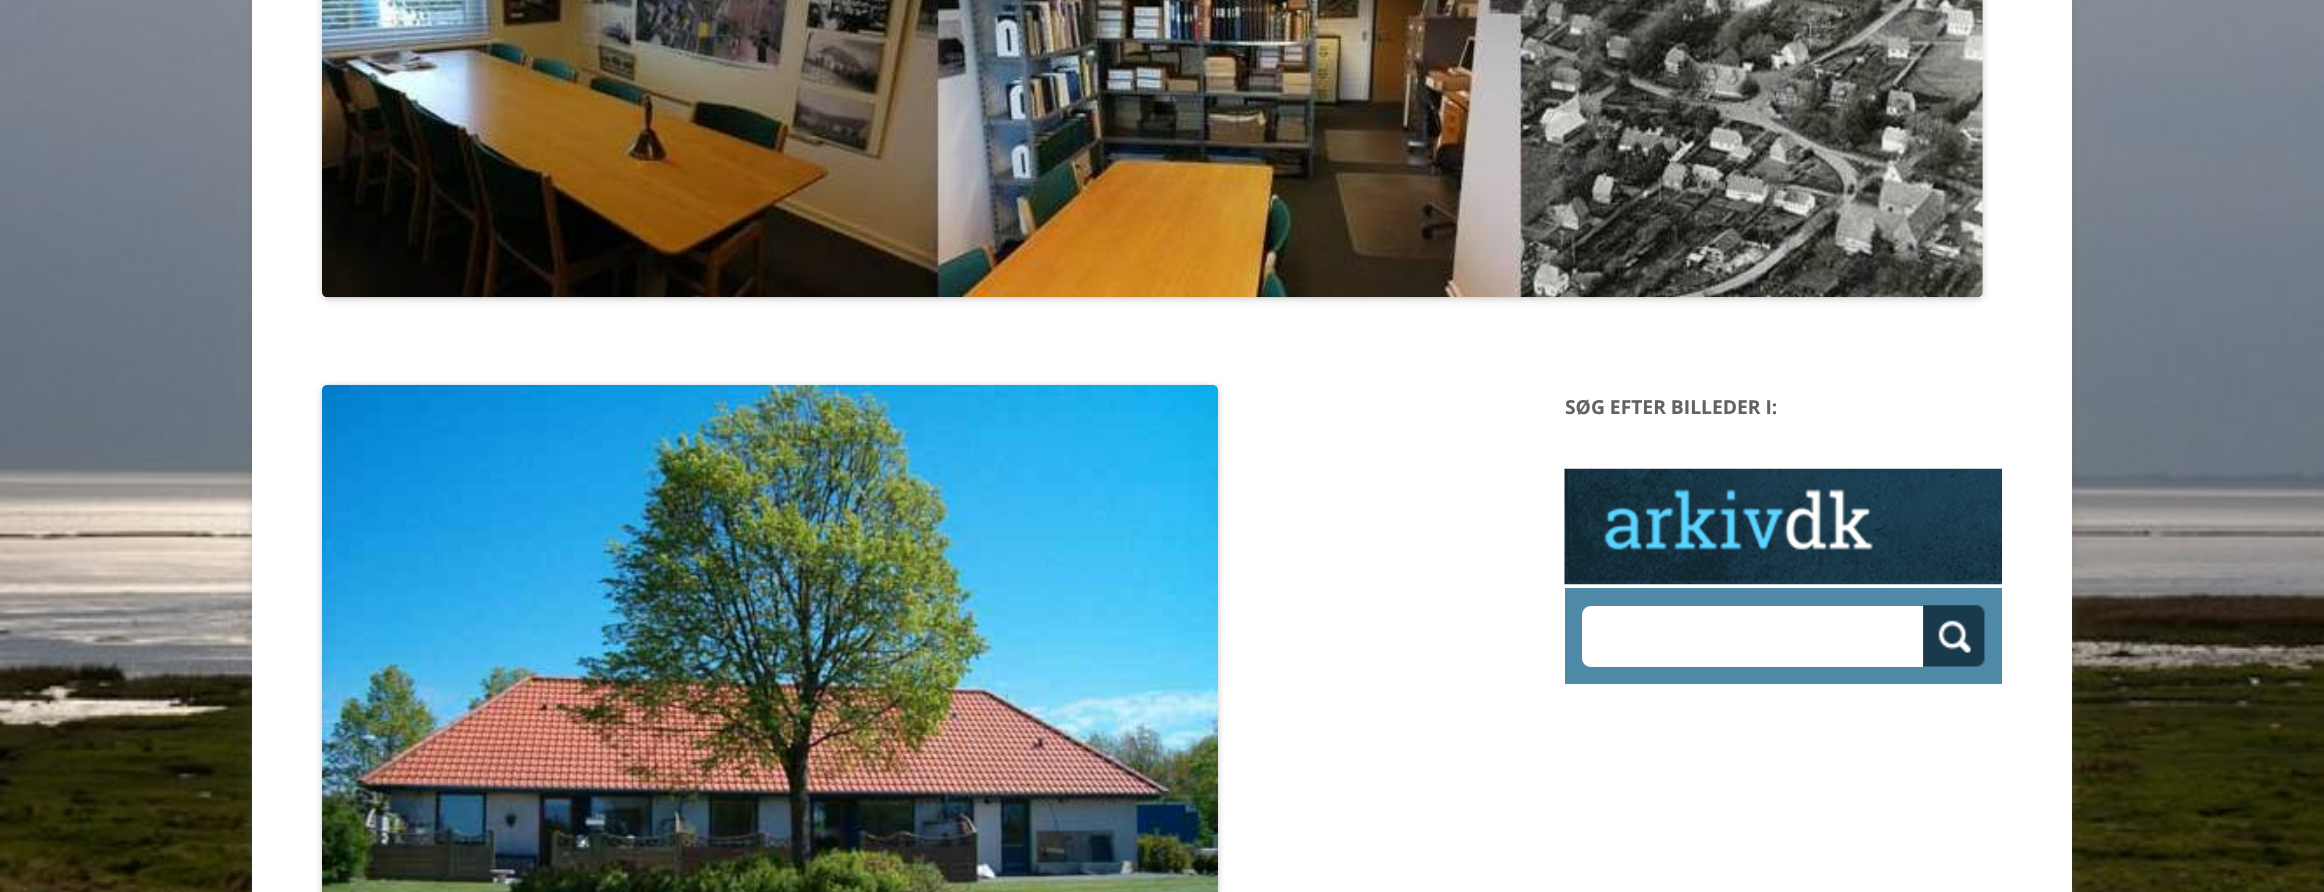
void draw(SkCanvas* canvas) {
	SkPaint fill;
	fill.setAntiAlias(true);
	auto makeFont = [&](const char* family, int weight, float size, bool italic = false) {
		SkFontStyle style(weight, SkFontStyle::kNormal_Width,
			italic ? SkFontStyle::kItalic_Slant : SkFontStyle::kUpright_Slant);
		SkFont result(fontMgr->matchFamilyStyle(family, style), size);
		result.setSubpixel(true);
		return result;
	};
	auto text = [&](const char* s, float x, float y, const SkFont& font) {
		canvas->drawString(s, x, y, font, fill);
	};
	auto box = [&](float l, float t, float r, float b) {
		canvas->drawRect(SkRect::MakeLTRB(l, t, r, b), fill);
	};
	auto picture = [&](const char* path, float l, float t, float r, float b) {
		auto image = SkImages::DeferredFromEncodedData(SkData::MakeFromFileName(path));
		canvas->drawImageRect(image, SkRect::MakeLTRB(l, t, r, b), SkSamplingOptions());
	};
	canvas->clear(0xFFFFFFFF);
	picture("image0.png", 0, 0, 2324, 892);
	fill.setColor(0x4D646464);
	fill.setMaskFilter(SkMaskFilter::MakeBlur(kNormal_SkBlurStyle, 5));
	canvas->drawRect(SkRect::MakeLTRB(252, -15, 2072, 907), fill);
	fill.setMaskFilter(nullptr);
	fill.setColor(0xFFFFFFFF);
	box(252, 0, 2072, 892);
	fill.setColor(0x33000000);
	fill.setMaskFilter(SkMaskFilter::MakeBlur(kNormal_SkBlurStyle, 3.5f));
	canvas->drawRoundRect(SkRect::MakeLTRB(322, -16, 1983, 299), 5, 5, fill);
	fill.setMaskFilter(nullptr);
	picture("image1.png", 322, 0, 1983, 298);
	fill.setMaskFilter(SkMaskFilter::MakeBlur(kNormal_SkBlurStyle, 3.5f));
	canvas->drawRoundRect(SkRect::MakeLTRB(322, 387, 1218, 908), 5, 5, fill);
	fill.setMaskFilter(nullptr);
	picture("image2.png", 322, 384, 1218, 892);
	picture("image3.png", 1564, 468, 2002, 585);
	picture("image4.png", 1604, 489, 1873, 550);
	fill.setColor(0xFF4E8AA8);
	box(1565, 588, 2002, 684);
	fill.setColor(0xFFFFFFFF);
	canvas->drawPath(SkPathBuilder().moveTo(1591, 606).lineTo(1923, 606).lineTo(1923, 667).lineTo(1591, 667).cubicTo(1586, 667, 1582, 663, 1582, 658).lineTo(1582, 615).cubicTo(1582, 610, 1586, 606, 1591, 606).close().detach(), fill);
	picture("image5.png", 1923, 605, 1985, 667);
	auto font1 = makeFont("Open Sans", 700, 19.25f);
	fill.setColor(0xFF636363);
	text("SØG EFTER BILLEDER I:", 1565, 414, font1);
}
